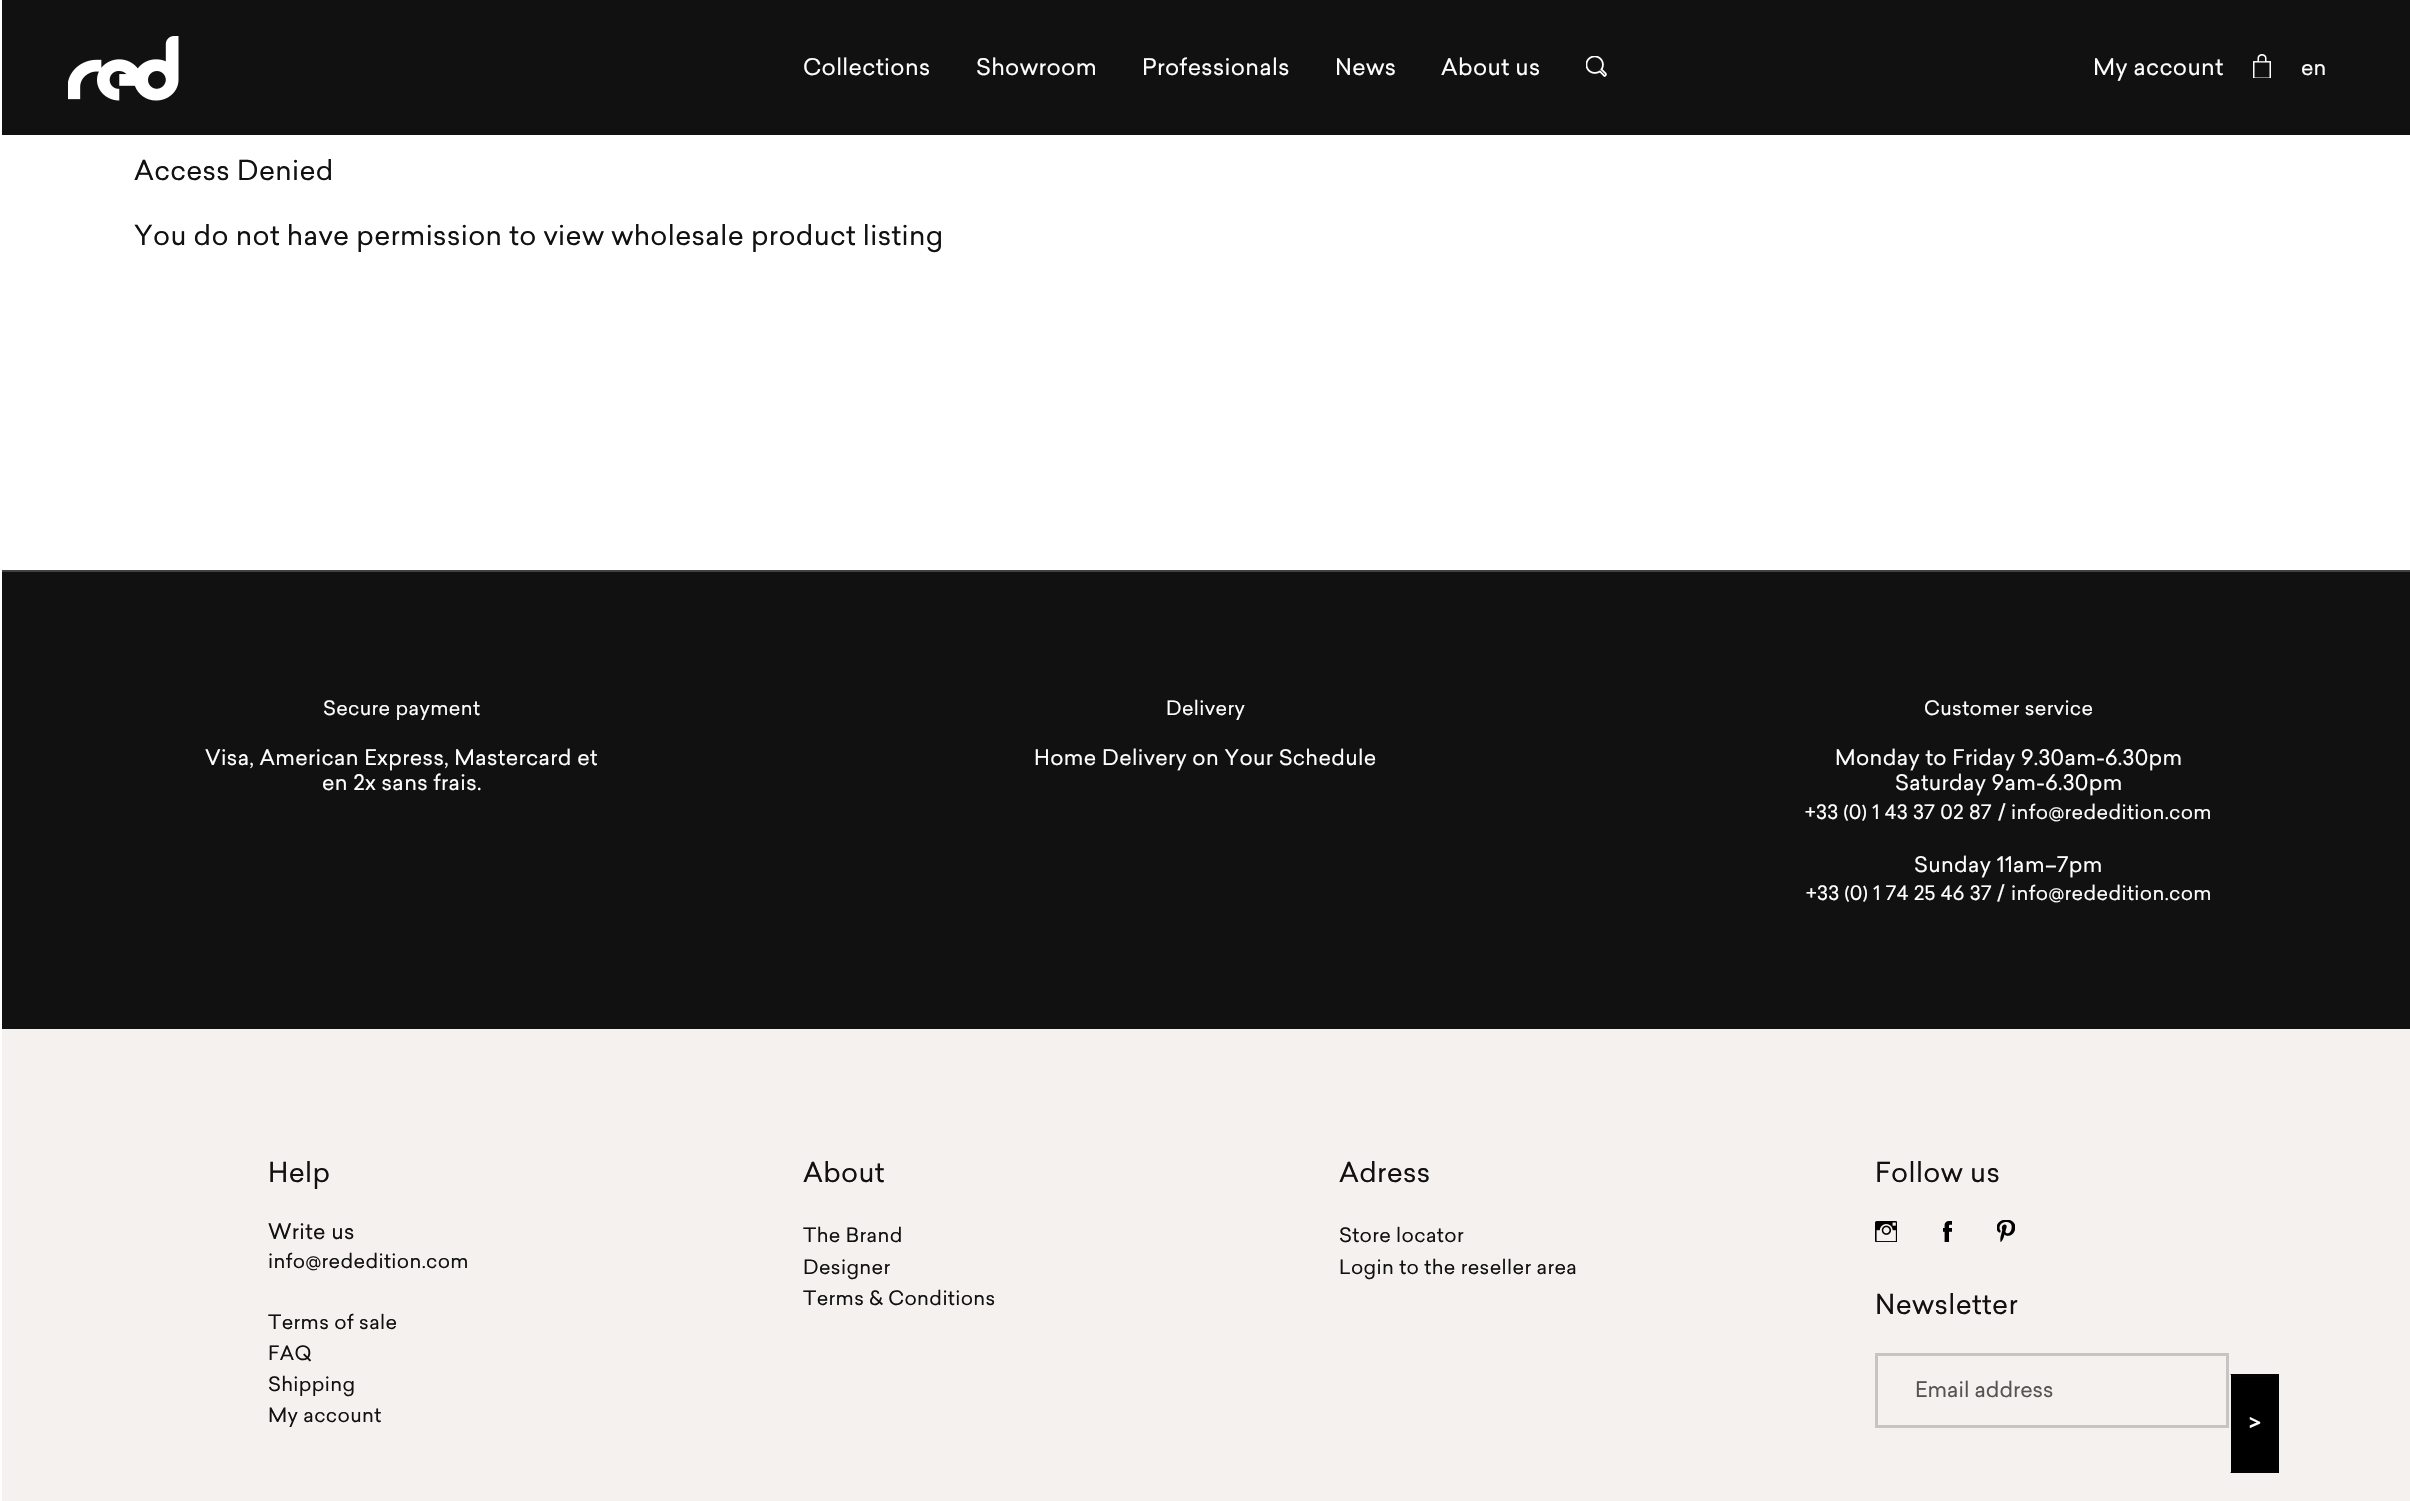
void draw(SkCanvas* canvas) {
	SkPaint fill;
	fill.setAntiAlias(true);
	auto makeFont = [&](const char* family, int weight, float size, bool italic = false) {
		SkFontStyle style(weight, SkFontStyle::kNormal_Width,
			italic ? SkFontStyle::kItalic_Slant : SkFontStyle::kUpright_Slant);
		SkFont result(fontMgr->matchFamilyStyle(family, style), size);
		result.setSubpixel(true);
		return result;
	};
	auto text = [&](const char* s, float x, float y, const SkFont& font) {
		canvas->drawString(s, x, y, font, fill);
	};
	auto spacedText = [&](const char* s, float x, float y, const SkFont& font, const SkPaint& ink, float letter, float word) {
		std::vector<SkGlyphID> glyphs(font.countText(s, strlen(s), SkTextEncoding::kUTF8));
		std::vector<float> xs(glyphs.size());
		font.textToGlyphs(s, strlen(s), SkTextEncoding::kUTF8, glyphs);
		font.getXPos(glyphs, xs, x);
		float extra = 0;
		for (size_t i = 0; i < glyphs.size(); i++) {
			xs[i] += extra;
			extra += letter + word * (glyphs[i] == font.unicharToGlyph(' '));
		}
		canvas->drawTextBlob(SkTextBlob::MakeFromPosHGlyphs(glyphs, xs, y, font), 0, 0, ink);
	};
	auto box = [&](float l, float t, float r, float b) {
		canvas->drawRect(SkRect::MakeLTRB(l, t, r, b), fill);
	};
	auto picture = [&](const char* path, float l, float t, float r, float b) {
		auto image = SkImages::DeferredFromEncodedData(SkData::MakeFromFileName(path));
		canvas->drawImageRect(image, SkRect::MakeLTRB(l, t, r, b), SkSamplingOptions());
	};
	canvas->clear(0xFFFFFFFF);
	fill.setColor(0xFF111111);
	box(2, 0, 2410, 135);
	picture("image0.png", 68, 36, 179, 101);
	picture("image1.png", 1586, 56, 1607, 77);
	picture("image2.png", 2253, 54, 2271, 78);
	fill.setColor(0xFF414141);
	box(0, 570, 2410, 572);
	fill.setColor(0xFFFFFFFF);
	box(0, 570, 2, 572);
	fill.setColor(0xFF111111);
	box(2, 572, 2410, 1029);
	fill.setColor(0xFFF4F1EE);
	box(2, 1029, 2410, 1501);
	picture("image3.png", 1875, 1221, 1897, 1242);
	picture("image4.png", 1943, 1221, 1952, 1242);
	picture("image5.png", 1997, 1220, 2015, 1242);
	fill.setStyle(SkPaint::kStroke_Style);
	fill.setStrokeWidth(3);
	fill.setColor(0xFFC7C4C2);
	canvas->drawRect(SkRect::MakeLTRB(1876.5f, 1354.5f, 2227.5f, 1426.5f), fill);
	fill.setStyle(SkPaint::kFill_Style);
	fill.setColor(0xFF000000);
	box(2231, 1374, 2279, 1473);
	fill.setColor(0xFF030303);
	canvas->drawPath(SkPathBuilder().moveTo(2230, 1374).lineTo(2278, 1374).lineTo(2276, 1377).lineTo(2234, 1377).close().detach(), fill);
	canvas->drawPath(SkPathBuilder().moveTo(2278, 1374).lineTo(2278, 1473).lineTo(2276, 1470).lineTo(2276, 1377).close().detach(), fill);
	canvas->drawPath(SkPathBuilder().moveTo(2278, 1473).lineTo(2230, 1473).lineTo(2234, 1470).lineTo(2276, 1470).close().detach(), fill);
	auto font1 = makeFont("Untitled", 400, 22.5f);
	fill.setColor(0xFFFFFFFF);
	spacedText("Collections", 803, 75, font1, fill, 0.38f, 0);
	spacedText("Showroom", 976, 75, font1, fill, 0.38f, 0);
	spacedText("Professionals", 1142, 75, font1, fill, 0.38f, 0);
	spacedText("News", 1335, 75, font1, fill, 0.38f, 0);
	spacedText("About us", 1441, 75, font1, fill, 0.38f, 0);
	spacedText("My account", 2093, 75, font1, fill, 0.38f, 0);
	auto font2 = makeFont("Untitled", 400, 21);
	text("en", 2301, 75, font2);
	auto font3 = makeFont("Untitled", 400, 27);
	fill.setColor(0xFF111111);
	spacedText("Access Denied", 134, 180, font3, fill, 0.38f, 0);
	spacedText("You do not have permission to view wholesale product listing", 134, 245, font3, fill, 0.38f, 0);
	auto font4 = makeFont("Untitled", 400, 19.5f);
	fill.setColor(0xFFFFFFFF);
	spacedText("Secure payment", 323, 715, font4, fill, 0.38f, 0);
	spacedText("Visa, American Express, Mastercard et", 205, 765, font2, fill, 0.38f, 0);
	spacedText("en 2x sans frais.", 322, 790, font2, fill, 0.38f, 0);
	spacedText("Delivery", 1166, 715, font4, fill, 0.38f, 0);
	spacedText("Home Delivery on Your Schedule", 1034, 765, font2, fill, 0.38f, 0);
	spacedText("Customer service", 1924, 715, font4, fill, 0.38f, 0);
	spacedText("Monday to Friday 9.30am-6.30pm", 1835, 765, font2, fill, 0.38f, 0);
	spacedText("Saturday 9am-6.30pm", 1895, 790, font2, fill, 0.38f, 0);
	spacedText("+33 (0) 1 43 37 02 87", 1805, 819, font4, fill, 0.38f, 0);
	spacedText("/", 1998, 819, font2, fill, 0.38f, 0);
	spacedText("info@rededition.com", 2011, 819, font4, fill, 0.38f, 0);
	spacedText("Sunday 11am–7pm", 1914, 872, font2, fill, 0.38f, 0);
	spacedText("+33 (0) 1 74 25 46 37", 1806, 900, font4, fill, 0.38f, 0);
	spacedText("/", 1997, 900, font2, fill, 0.38f, 0);
	spacedText("info@rededition.com", 2011, 900, font4, fill, 0.38f, 0);
	fill.setColor(0xFF111111);
	spacedText("Help", 268, 1182, font3, fill, 0.38f, 0);
	spacedText("Write us", 268, 1239, font2, fill, 0.38f, 0);
	spacedText("info@rededition.com", 268, 1268, font4, fill, 0.38f, 0);
	spacedText("Terms of sale", 268, 1329, font4, fill, 0.38f, 0);
	spacedText("FAQ", 268, 1360, font4, fill, 0.38f, 0);
	spacedText("Shipping", 268, 1391, font4, fill, 0.38f, 0);
	spacedText("My account", 268, 1422, font4, fill, 0.38f, 0);
	spacedText("About", 803, 1182, font3, fill, 0.38f, 0);
	spacedText("The Brand", 803, 1242, font4, fill, 0.38f, 0);
	spacedText("Designer", 803, 1274, font4, fill, 0.38f, 0);
	spacedText("Terms & Conditions", 803, 1305, font4, fill, 0.38f, 0);
	spacedText("Adress", 1339, 1182, font3, fill, 0.38f, 0);
	spacedText("Store locator", 1339, 1242, font4, fill, 0.38f, 0);
	spacedText("Login to the reseller area", 1339, 1274, font4, fill, 0.38f, 0);
	spacedText("Follow us", 1875, 1182, font3, fill, 0.38f, 0);
	spacedText("Newsletter", 1875, 1314, font3, fill, 0.38f, 0);
	fill.setColor(0xFF555453);
	text("Email address", 1915, 1397, font2);
	auto font5 = makeFont("Open Sans", 700, 21);
	fill.setColor(0xFFFFFFFF);
	text(">", 2249, 1430, font5);
}
